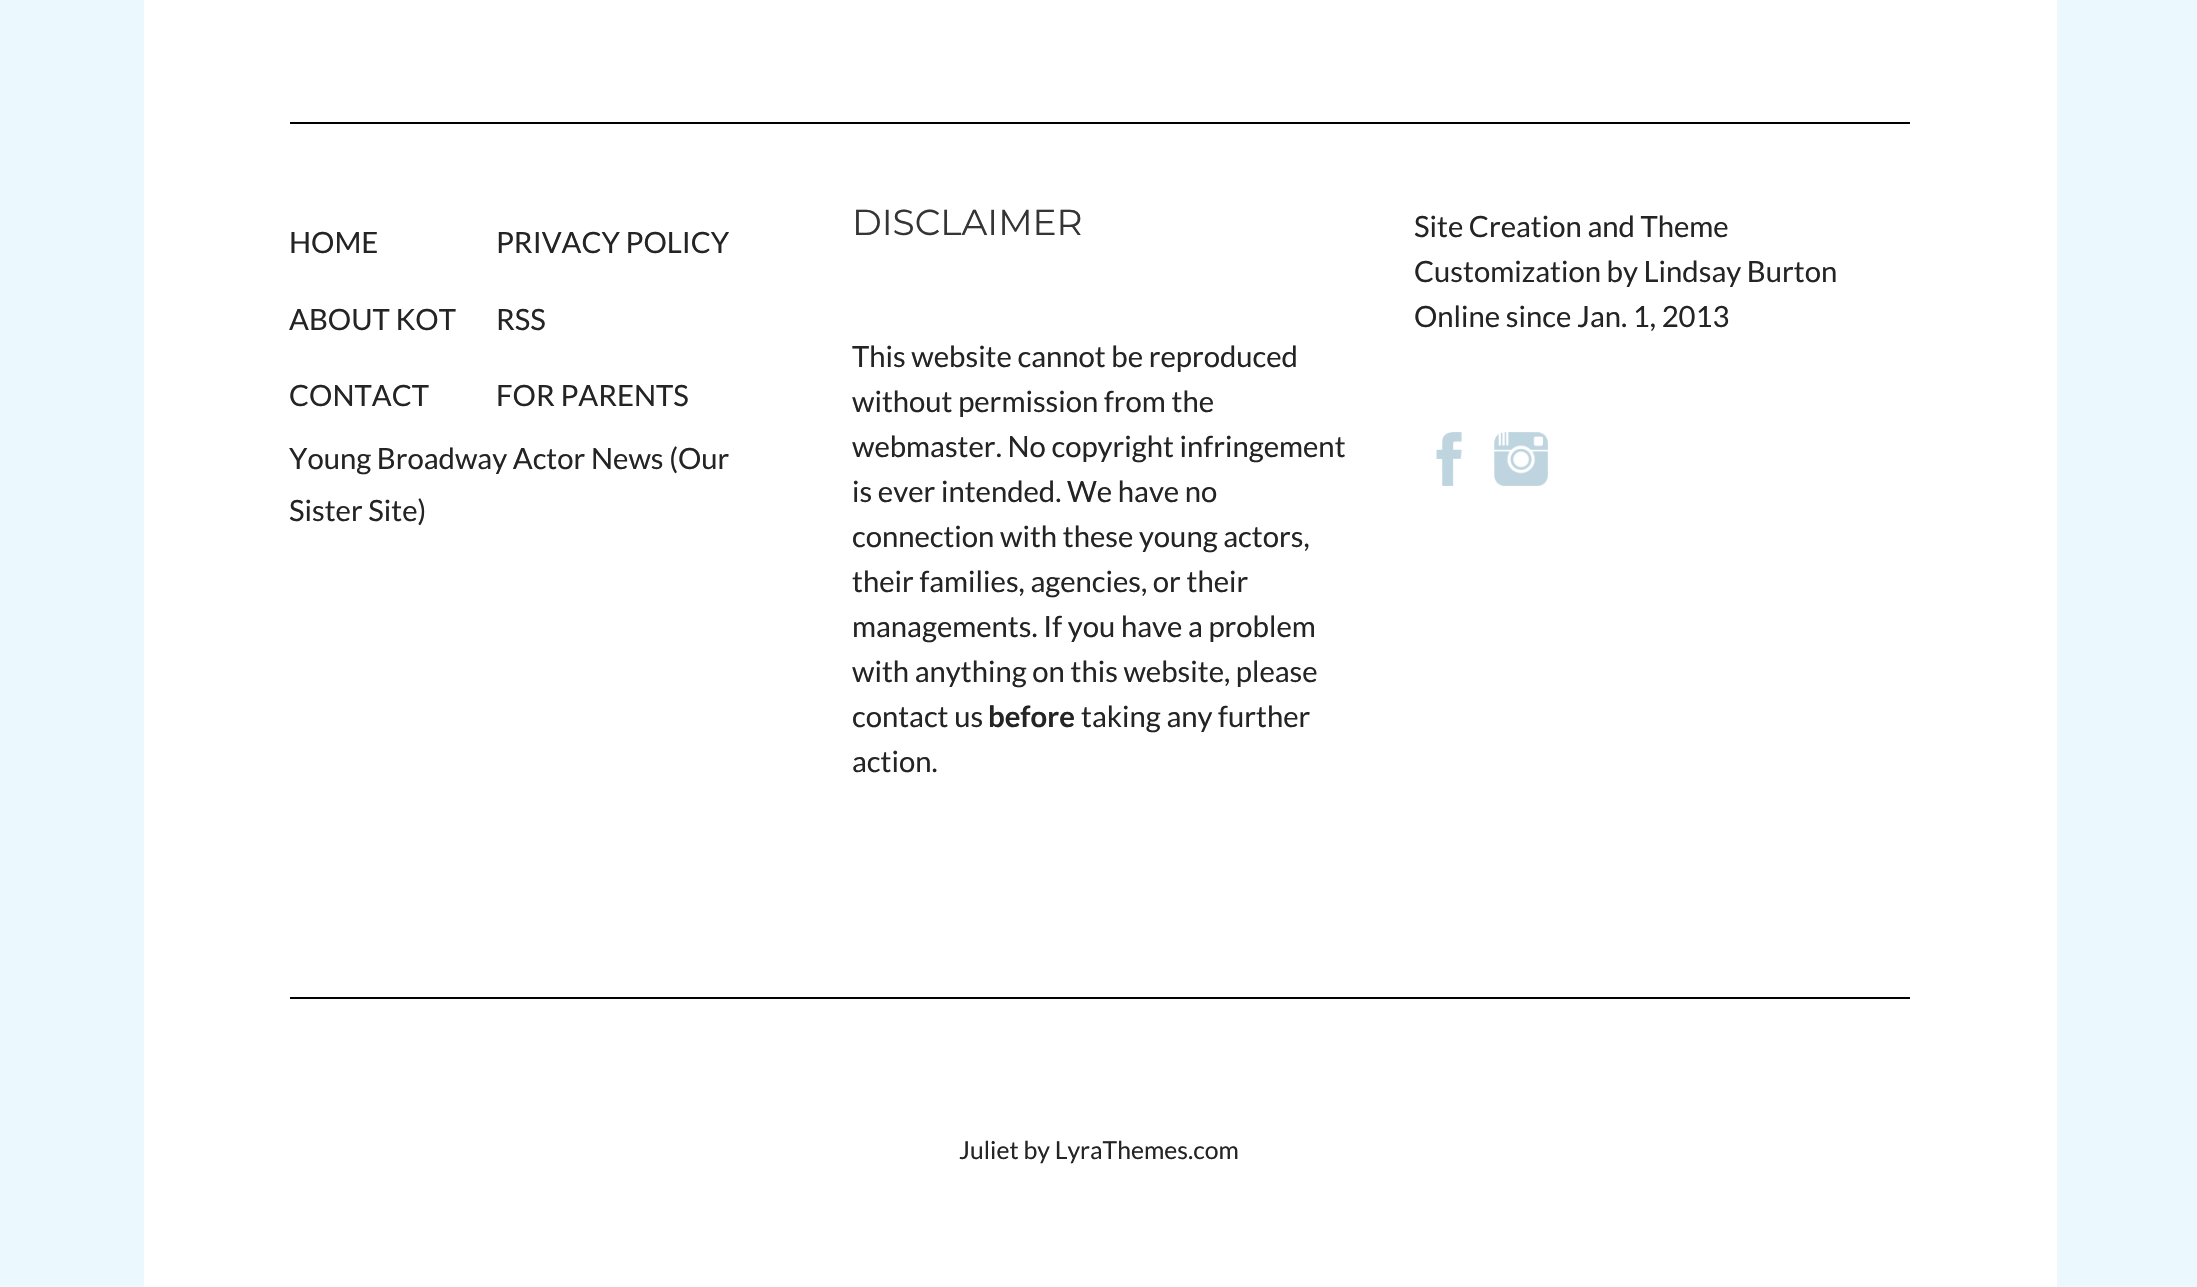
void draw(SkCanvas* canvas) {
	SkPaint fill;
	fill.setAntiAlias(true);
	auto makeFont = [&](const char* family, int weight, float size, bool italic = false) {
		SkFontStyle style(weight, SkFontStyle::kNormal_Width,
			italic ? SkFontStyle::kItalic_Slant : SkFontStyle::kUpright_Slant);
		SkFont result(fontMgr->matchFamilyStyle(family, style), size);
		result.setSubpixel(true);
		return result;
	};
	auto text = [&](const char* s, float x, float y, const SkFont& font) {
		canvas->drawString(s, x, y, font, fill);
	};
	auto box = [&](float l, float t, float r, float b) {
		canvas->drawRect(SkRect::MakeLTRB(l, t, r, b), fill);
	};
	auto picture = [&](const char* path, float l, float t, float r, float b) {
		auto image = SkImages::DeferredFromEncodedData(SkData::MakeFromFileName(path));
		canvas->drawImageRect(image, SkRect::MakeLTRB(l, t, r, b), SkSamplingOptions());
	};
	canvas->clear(0xFFEBF8FE);
	fill.setColor(0xFFFFFFFF);
	box(144, 0, 2057, 1287);
	fill.setColor(0xFF000000);
	box(290, 122, 1910, 124);
	picture("image0.png", 1436, 432, 1462, 486);
	picture("image1.png", 1494, 432, 1548, 486);
	box(290, 997, 1910, 999);
	auto font1 = makeFont("Lato", 400, 29.25f);
	fill.setColor(0xFF242424);
	text("HOME", 289, 253, font1);
	text("ABOUT KOT", 289, 330, font1);
	text("CONTACT", 289, 406, font1);
	text("PRIVACY POLICY", 496, 253, font1);
	text("RSS", 496, 330, font1);
	text("FOR PARENTS", 496, 406, font1);
	text("Young Broadway Actor News (Our", 289, 469, font1);
	text("Sister Site)", 289, 521, font1);
	auto font2 = makeFont("Montserrat", 400, 36);
	fill.setColor(0xFF353535);
	text("DISCLAIMER", 852, 235, font2);
	fill.setColor(0xFF242424);
	text("This website cannot be reproduced", 852, 367, font1);
	text("without permission from the", 852, 412, font1);
	text("webmaster. No copyright infringement", 852, 457, font1);
	text("is ever intended. We have no", 852, 502, font1);
	text("connection with these young actors,", 852, 547, font1);
	text("their families, agencies, or their", 852, 592, font1);
	text("managements. If you have a problem", 852, 637, font1);
	text("with anything on this website, please", 852, 682, font1);
	text("contact us", 852, 727, font1);
	auto font3 = makeFont("Lato", 700, 29.25f);
	text("before", 988, 727, font3);
	text("taking any further", 1081, 727, font1);
	text("action.", 852, 772, font1);
	text("Site Creation and Theme", 1414, 237, font1);
	text("Customization by Lindsay Burton", 1414, 282, font1);
	text("Online since Jan. 1, 2013", 1414, 327, font1);
	auto font4 = makeFont("Lato", 400, 24.75f);
	text("Juliet by LyraThemes.com", 959, 1159, font4);
}
